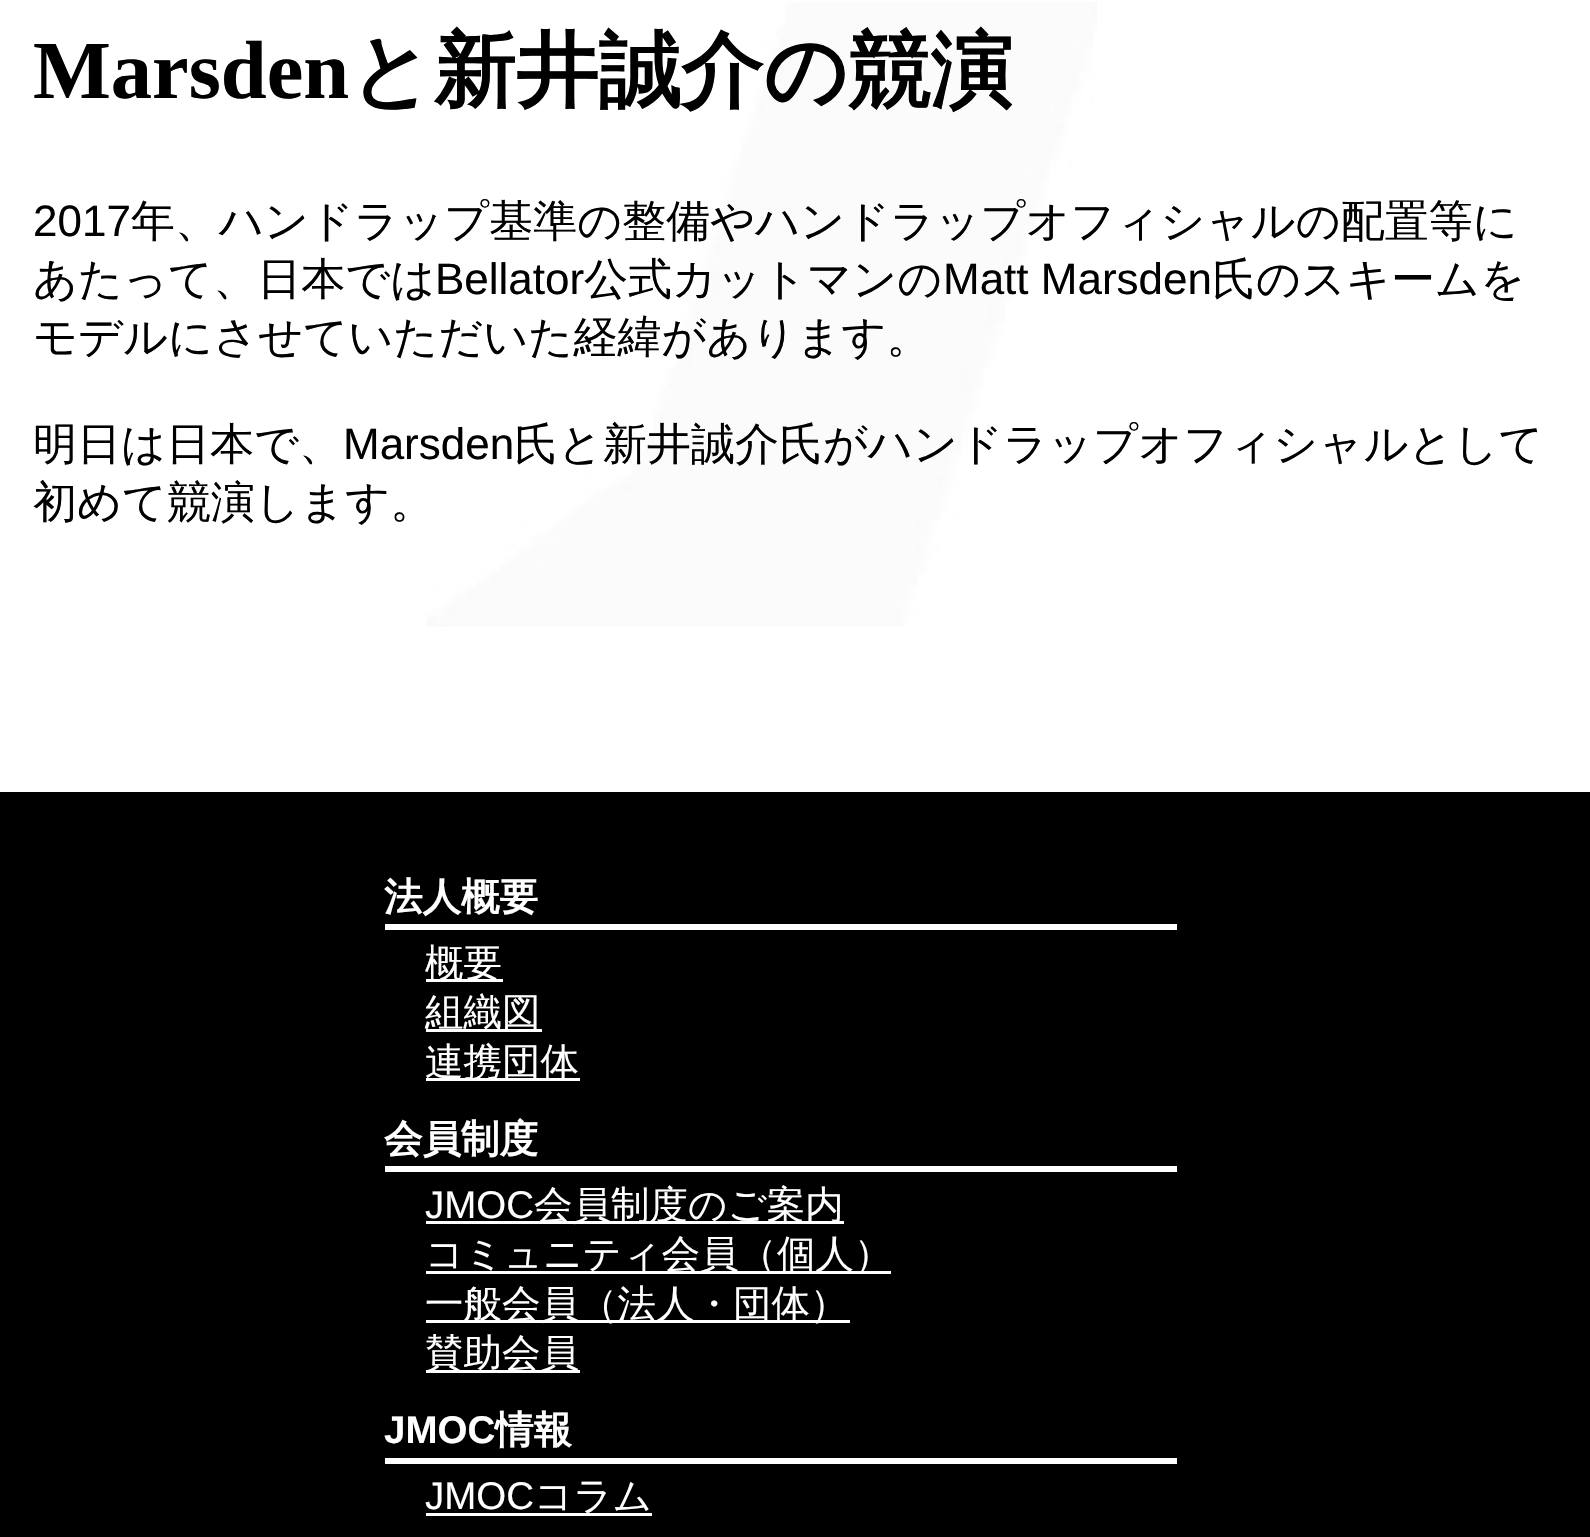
void draw(SkCanvas* canvas) {
	SkPaint fill;
	fill.setAntiAlias(true);
	auto makeFont = [&](const char* family, int weight, float size, bool italic = false) {
		SkFontStyle style(weight, SkFontStyle::kNormal_Width,
			italic ? SkFontStyle::kItalic_Slant : SkFontStyle::kUpright_Slant);
		SkFont result(fontMgr->matchFamilyStyle(family, style), size);
		result.setSubpixel(true);
		return result;
	};
	auto text = [&](const char* s, float x, float y, const SkFont& font) {
		canvas->drawString(s, x, y, font, fill);
	};
	auto box = [&](float l, float t, float r, float b) {
		canvas->drawRect(SkRect::MakeLTRB(l, t, r, b), fill);
	};
	auto picture = [&](const char* path, float l, float t, float r, float b) {
		auto image = SkImages::DeferredFromEncodedData(SkData::MakeFromFileName(path));
		canvas->drawImageRect(image, SkRect::MakeLTRB(l, t, r, b), SkSamplingOptions());
	};
	canvas->clear(0xFFFFFFFF);
	picture("image0.png", 426, 2, 1097, 627);
	fill.setColor(0xFF000000);
	box(0, 792, 1590, 1537);
	fill.setColor(0xFFFFFFFF);
	box(385, 924, 1177, 930);
	box(426, 979, 503, 982);
	box(426, 1029, 542, 1032);
	box(426, 1078, 580, 1081);
	box(385, 1166, 1177, 1172);
	box(426, 1221, 844, 1224);
	box(426, 1271, 891, 1274);
	box(426, 1320, 850, 1323);
	box(426, 1370, 580, 1373);
	box(385, 1458, 1177, 1464);
	box(426, 1513, 652, 1516);
	auto font1 = makeFont("Liberation Serif", 700, 82.5f);
	fill.setColor(0xFF000000);
	text("Marsden", 33, 98, font1);
	auto font2 = makeFont("WenQuanYi Zen Hei", 700, 82.5f);
	text("と新井誠介の競演", 349, 99, font2);
	auto font3 = makeFont("Liberation Sans", 400, 44);
	text("2017", 33, 236, font3);
	auto font4 = makeFont("WenQuanYi Zen Hei", 500, 44);
	text("年、ハンドラップ基準の整備やハンドラップオフィシャルの配置等に", 131, 236, font4);
	text("あたって、日本では", 33, 294, font4);
	text("Bellator", 435, 294, font3);
	text("公式カットマンの", 584, 294, font4);
	text("Matt Marsden", 943, 294, font3);
	text("氏のスキームを", 1212, 294, font4);
	text("モデルにさせていただいた経緯があります。", 33, 352, font4);
	text("明日は日本で、", 33, 459, font4);
	text("Marsden", 343, 459, font3);
	text("氏と新井誠介氏がハンドラップオフィシャルとして", 514, 459, font4);
	text("初めて競演します。", 33, 517, font4);
	auto font5 = makeFont("WenQuanYi Zen Hei", 700, 38.5f);
	fill.setColor(0xFFFFFFFF);
	text("法人概要", 384, 910, font5);
	auto font6 = makeFont("WenQuanYi Zen Hei", 500, 38.5f);
	text("概要", 425, 976, font6);
	text("組織図", 425, 1025, font6);
	text("連携団体", 425, 1075, font6);
	text("会員制度", 384, 1152, font5);
	auto font7 = makeFont("Liberation Sans", 400, 38.5f);
	text("JMOC", 425, 1218, font7);
	text("会員制度のご案内", 534, 1218, font6);
	text("コミュニティ会員（個人）", 425, 1267, font6);
	text("一般会員（法人・団体）", 425, 1317, font6);
	text("賛助会員", 425, 1366, font6);
	auto font8 = makeFont("Liberation Sans", 700, 38.5f);
	text("JMOC", 384, 1443, font8);
	text("情報", 495, 1443, font5);
	text("JMOC", 425, 1509, font7);
	text("コラム", 534, 1509, font6);
}
